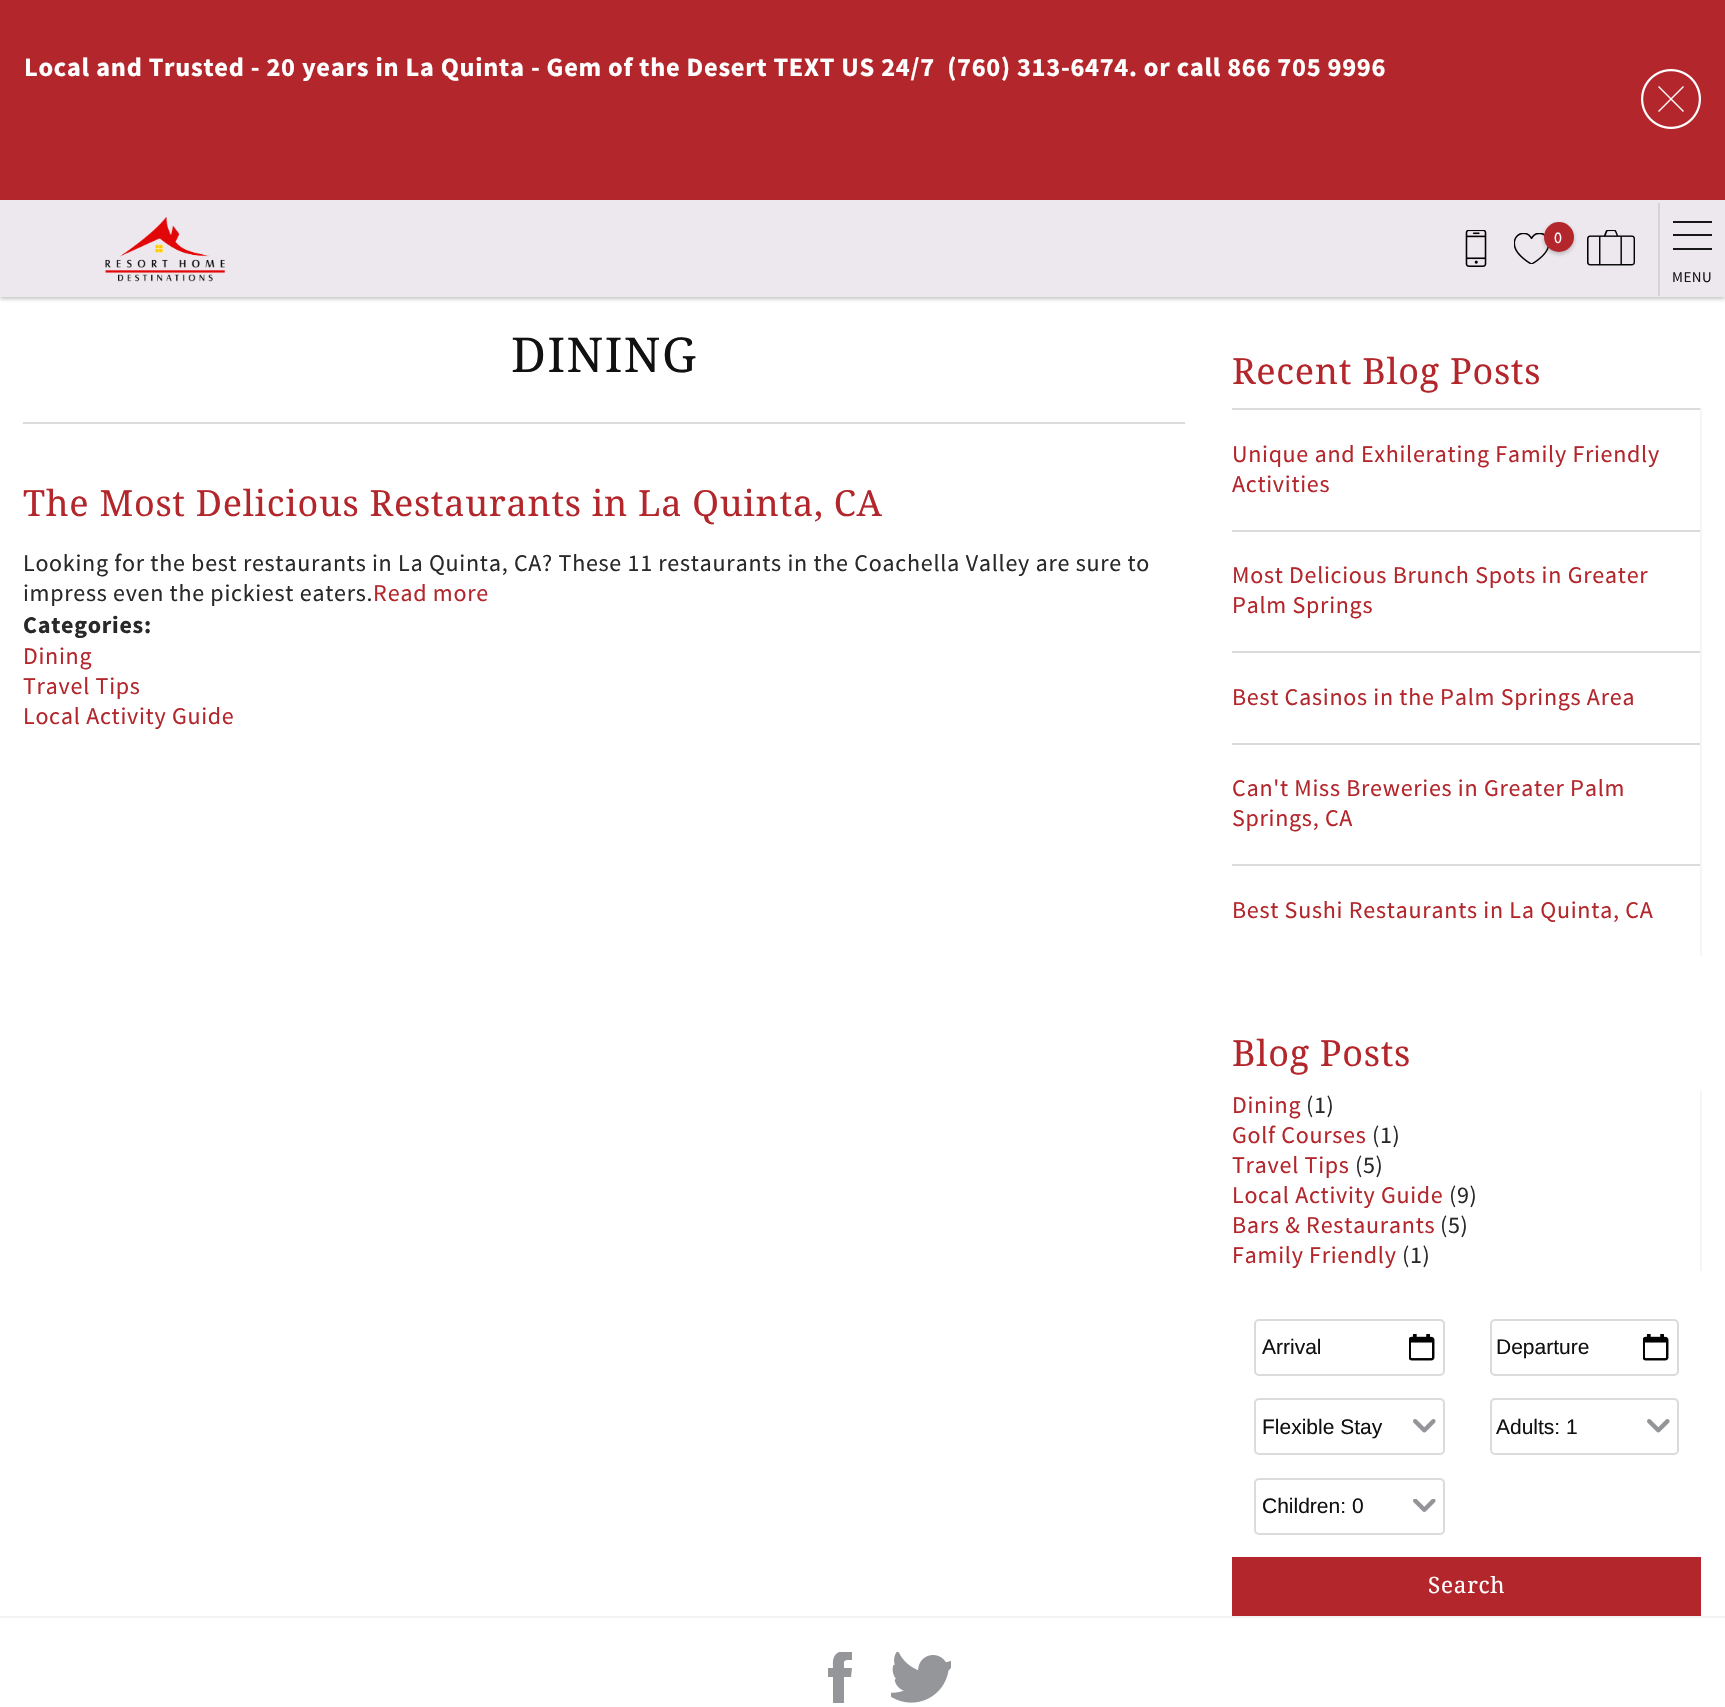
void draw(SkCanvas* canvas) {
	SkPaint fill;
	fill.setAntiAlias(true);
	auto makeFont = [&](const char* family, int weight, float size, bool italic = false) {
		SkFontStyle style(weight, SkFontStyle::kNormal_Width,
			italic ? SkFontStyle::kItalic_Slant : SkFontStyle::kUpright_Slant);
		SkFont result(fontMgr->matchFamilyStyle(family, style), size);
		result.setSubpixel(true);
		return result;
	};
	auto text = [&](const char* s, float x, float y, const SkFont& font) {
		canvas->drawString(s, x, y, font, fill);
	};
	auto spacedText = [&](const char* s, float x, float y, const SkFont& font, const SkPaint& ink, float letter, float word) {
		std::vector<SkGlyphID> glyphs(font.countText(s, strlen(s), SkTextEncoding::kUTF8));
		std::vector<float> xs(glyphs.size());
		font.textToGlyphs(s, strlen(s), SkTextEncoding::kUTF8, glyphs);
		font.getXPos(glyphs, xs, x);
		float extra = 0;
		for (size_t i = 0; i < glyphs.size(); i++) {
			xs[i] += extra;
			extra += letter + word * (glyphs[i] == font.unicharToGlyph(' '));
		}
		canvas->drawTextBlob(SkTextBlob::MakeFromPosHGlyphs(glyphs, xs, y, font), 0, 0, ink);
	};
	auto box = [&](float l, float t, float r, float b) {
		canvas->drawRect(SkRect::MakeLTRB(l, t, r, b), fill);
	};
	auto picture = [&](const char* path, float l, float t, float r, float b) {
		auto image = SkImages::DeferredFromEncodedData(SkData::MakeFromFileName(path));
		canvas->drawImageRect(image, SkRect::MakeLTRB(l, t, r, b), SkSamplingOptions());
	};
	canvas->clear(0xFFFFFFFF);
	fill.setColor(0x40111111);
	fill.setMaskFilter(SkMaskFilter::MakeBlur(kNormal_SkBlurStyle, 2));
	canvas->drawRect(SkRect::MakeLTRB(0, 201, 1725, 299), fill);
	fill.setMaskFilter(nullptr);
	fill.setColor(0xFFB3262B);
	box(0, 0, 1725, 200);
	picture("image0.png", 1641, 69, 1701, 129);
	fill.setColor(0xFFEDE8ED);
	box(0, 200, 1725, 297);
	picture("image1.png", 105, 216, 225, 282);
	picture("image2.png", 1465, 230, 1487, 267);
	picture("image3.png", 1514, 233, 1549, 264);
	fill.setColor(0x40111111);
	fill.setMaskFilter(SkMaskFilter::MakeBlur(kNormal_SkBlurStyle, 2));
	canvas->drawRoundRect(SkRect::MakeLTRB(1544, 224, 1574, 254), 15, 15, fill);
	fill.setMaskFilter(nullptr);
	fill.setColor(0xFFB3262B);
	canvas->drawCircle(1559, 237, 15, fill);
	picture("image4.png", 1587, 230, 1635, 266);
	fill.setColor(0xFFD7D2D7);
	box(1658, 203, 1660, 296);
	fill.setColor(0xFF181718);
	box(1673, 234, 1712, 236);
	box(1673, 221, 1712, 223);
	box(1673, 248, 1712, 250);
	fill.setColor(0xFFDBDBDB);
	box(23, 422, 1185, 424);
	fill.setColor(0xFFF5F5F5);
	box(1700, 408, 1702, 956);
	fill.setColor(0xFFDBDBDB);
	box(1232, 408, 1700, 410);
	box(1232, 530, 1700, 532);
	box(1232, 651, 1700, 653);
	box(1232, 743, 1700, 745);
	box(1232, 864, 1700, 866);
	fill.setColor(0xFFF5F5F5);
	box(1700, 1091, 1702, 1271);
	picture("image5.png", 1409, 1334, 1435, 1361);
	fill.setStyle(SkPaint::kStroke_Style);
	fill.setStrokeWidth(2);
	fill.setColor(0xFFDBDBDB);
	canvas->drawRoundRect(SkRect::MakeLTRB(1255, 1320, 1444, 1375), 4, 4, fill);
	picture("image5.png", 1643, 1334, 1669, 1361);
	canvas->drawRoundRect(SkRect::MakeLTRB(1491, 1320, 1678, 1375), 4, 4, fill);
	picture("image6.png", 1413, 1419, 1436, 1433);
	canvas->drawRoundRect(SkRect::MakeLTRB(1255, 1399, 1444, 1454), 4, 4, fill);
	picture("image6.png", 1647, 1419, 1670, 1433);
	canvas->drawRoundRect(SkRect::MakeLTRB(1491, 1399, 1678, 1454), 4, 4, fill);
	picture("image7.png", 1413, 1499, 1436, 1512);
	canvas->drawRoundRect(SkRect::MakeLTRB(1255, 1479, 1444, 1534), 4, 4, fill);
	fill.setStyle(SkPaint::kFill_Style);
	fill.setColor(0xFFB3262B);
	box(1232, 1557, 1701, 1616);
	fill.setColor(0xFFF3F3F3);
	box(0, 1616, 1725, 1618);
	canvas->save();
	canvas->clipRect(SkRect::MakeLTRB(828, 1652, 852, 1703));
	fill.setColor(0xFF949699);
	canvas->drawPath(SkPathBuilder().moveTo(836, 1654).cubicTo(840, 1650, 847, 1652, 852, 1652).lineTo(852, 1660).cubicTo(843, 1660, 844, 1660, 844, 1668).lineTo(852, 1668).lineTo(851, 1677).lineTo(844, 1677).lineTo(844, 1703).lineTo(833, 1703).lineTo(833, 1677).lineTo(828, 1677).lineTo(828, 1668).lineTo(833, 1668).cubicTo(833, 1664, 832, 1658, 836, 1654).close().detach(), fill);
	canvas->restore();
	picture("image8.png", 891, 1652, 951, 1703);
	auto font1 = makeFont("Source Sans Pro", 700, 26.4f);
	fill.setColor(0xFFFFFFFF);
	spacedText("Local and Trusted - 20 years in La Quinta - Gem of the Desert TEXT US 24/7  (760) 313-6474. or call 866 705 9996", 24, 76, font1, fill, 0.72f, 0);
	auto font2 = makeFont("Source Sans Pro", 400, 16);
	spacedText("0", 1554, 243, font2, fill, 0.72f, 0);
	auto font3 = makeFont("Source Sans Pro", 400, 15);
	fill.setColor(0xFF181718);
	spacedText("MENU", 1672, 282, font3, fill, 0.5f, 0);
	auto font4 = makeFont("Droid Serif", 400, 48);
	fill.setColor(0xFF111111);
	spacedText("DINING", 511, 372, font4, fill, 1.5f, 0);
	auto font5 = makeFont("Droid Serif", 400, 36);
	fill.setColor(0xFFB3262B);
	spacedText("The Most Delicious Restaurants in La Quinta, CA", 23, 516, font5, fill, 0.72f, 0);
	auto font6 = makeFont("Source Sans Pro", 400, 24);
	fill.setColor(0xFF292929);
	spacedText("Looking for the best restaurants in La Quinta, CA? These 11 restaurants in the Coachella Valley are sure to", 23, 571, font6, fill, 0.72f, 0);
	spacedText("impress even the pickiest eaters.", 23, 601, font6, fill, 0.72f, 0);
	fill.setColor(0xFFB3262B);
	spacedText("Read more", 373, 601, font6, fill, 0.72f, 0);
	auto font7 = makeFont("Source Sans Pro", 700, 24);
	fill.setColor(0xFF292929);
	spacedText("Categories:", 23, 633, font7, fill, 0.72f, 0);
	fill.setColor(0xFFB3262B);
	spacedText("Dining", 23, 664, font6, fill, 0.72f, 0);
	spacedText("Travel Tips", 23, 694, font6, fill, 0.72f, 0);
	spacedText("Local Activity Guide", 23, 724, font6, fill, 0.72f, 0);
	spacedText("Recent Blog Posts", 1232, 384, font5, fill, 0.72f, 0);
	spacedText("Unique and Exhilerating Family Friendly", 1232, 462, font6, fill, 0.72f, 0);
	spacedText("Activities", 1232, 492, font6, fill, 0.72f, 0);
	spacedText("Most Delicious Brunch Spots in Greater", 1232, 583, font6, fill, 0.72f, 0);
	spacedText("Palm Springs", 1232, 613, font6, fill, 0.72f, 0);
	spacedText("Best Casinos in the Palm Springs Area", 1232, 705, font6, fill, 0.72f, 0);
	spacedText("Can't Miss Breweries in Greater Palm", 1232, 796, font6, fill, 0.72f, 0);
	spacedText("Springs, CA", 1232, 826, font6, fill, 0.72f, 0);
	spacedText("Best Sushi Restaurants in La Quinta, CA", 1232, 918, font6, fill, 0.72f, 0);
	spacedText("Blog Posts", 1232, 1066, font5, fill, 0.72f, 0);
	spacedText("Dining", 1232, 1113, font6, fill, 0.72f, 0);
	fill.setColor(0xFF292929);
	spacedText("(1)", 1306, 1113, font6, fill, 0.72f, 0);
	fill.setColor(0xFFB3262B);
	spacedText("Golf Courses", 1232, 1143, font6, fill, 0.72f, 0);
	fill.setColor(0xFF292929);
	spacedText("(1)", 1372, 1143, font6, fill, 0.72f, 0);
	fill.setColor(0xFFB3262B);
	spacedText("Travel Tips", 1232, 1173, font6, fill, 0.72f, 0);
	fill.setColor(0xFF292929);
	spacedText("(5)", 1355, 1173, font6, fill, 0.72f, 0);
	fill.setColor(0xFFB3262B);
	spacedText("Local Activity Guide", 1232, 1203, font6, fill, 0.72f, 0);
	fill.setColor(0xFF292929);
	spacedText("(9)", 1449, 1203, font6, fill, 0.72f, 0);
	fill.setColor(0xFFB3262B);
	spacedText("Bars & Restaurants", 1232, 1233, font6, fill, 0.72f, 0);
	fill.setColor(0xFF292929);
	spacedText("(5)", 1440, 1233, font6, fill, 0.72f, 0);
	fill.setColor(0xFFB3262B);
	spacedText("Family Friendly", 1232, 1263, font6, fill, 0.72f, 0);
	fill.setColor(0xFF292929);
	spacedText("(1)", 1402, 1263, font6, fill, 0.72f, 0);
	auto font8 = makeFont("Liberation Sans", 400, 21);
	fill.setColor(0xFF111111);
	text("Arrival", 1262, 1354, font8);
	text("Departure", 1496, 1354, font8);
	text("Flexible Stay", 1262, 1434, font8);
	text("Adults: 1", 1496, 1434, font8);
	text("Children: 0", 1262, 1513, font8);
	auto font9 = makeFont("Droid Serif", 400, 22.5f);
	fill.setColor(0xFFFFFFFF);
	spacedText("Search", 1428, 1593, font9, fill, 0.75f, 0);
}
